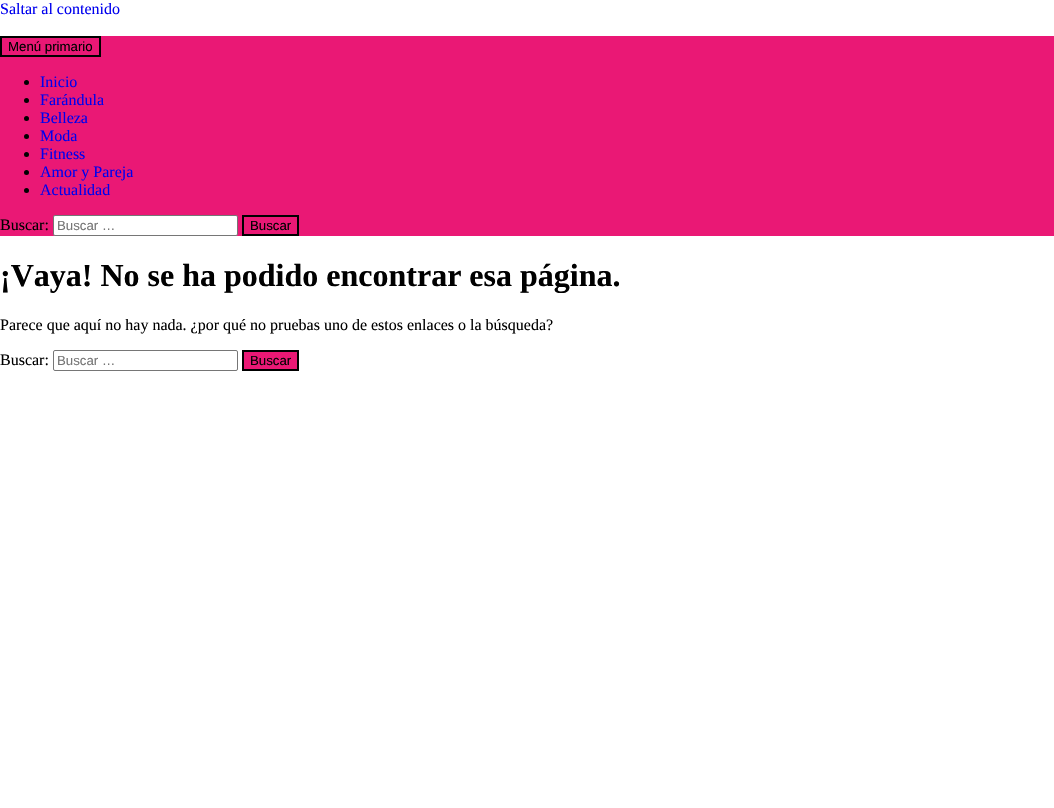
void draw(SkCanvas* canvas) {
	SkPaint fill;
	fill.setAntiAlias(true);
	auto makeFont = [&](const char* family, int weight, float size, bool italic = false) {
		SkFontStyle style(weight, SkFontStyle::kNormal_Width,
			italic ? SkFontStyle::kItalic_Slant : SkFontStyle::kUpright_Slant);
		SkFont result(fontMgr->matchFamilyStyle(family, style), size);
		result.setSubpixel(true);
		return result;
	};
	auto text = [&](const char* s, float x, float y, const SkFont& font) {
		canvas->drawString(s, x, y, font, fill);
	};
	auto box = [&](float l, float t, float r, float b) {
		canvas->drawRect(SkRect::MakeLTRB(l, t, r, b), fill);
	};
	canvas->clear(0xFFFFFFFF);
	fill.setColor(0xFFEA1875);
	box(0, 36, 1054, 236);
	fill.setStyle(SkPaint::kStroke_Style);
	fill.setStrokeWidth(2);
	fill.setColor(0xFF000000);
	canvas->drawRect(SkRect::MakeLTRB(1, 37, 100, 56), fill);
	fill.setStyle(SkPaint::kFill_Style);
	canvas->drawCircle(26.5f, 82.5f, 2.5f, fill);
	canvas->drawCircle(26.5f, 100.5f, 2.5f, fill);
	canvas->drawCircle(26.5f, 118.5f, 2.5f, fill);
	canvas->drawCircle(26.5f, 136.5f, 2.5f, fill);
	canvas->drawCircle(26.5f, 154.5f, 2.5f, fill);
	canvas->drawCircle(26.5f, 172.5f, 2.5f, fill);
	canvas->drawCircle(26.5f, 190.5f, 2.5f, fill);
	fill.setColor(0xFFFFFFFF);
	canvas->drawRoundRect(SkRect::MakeLTRB(53.5f, 215.5f, 237.5f, 235.5f), 1.5f, 1.5f, fill);
	fill.setStyle(SkPaint::kStroke_Style);
	fill.setStrokeWidth(1);
	fill.setColor(0xFF767676);
	canvas->drawRoundRect(SkRect::MakeLTRB(53.5f, 215.5f, 237.5f, 235.5f), 1.5f, 1.5f, fill);
	fill.setStrokeWidth(2);
	fill.setColor(0xFF000000);
	canvas->drawRect(SkRect::MakeLTRB(243, 216, 298, 235), fill);
	fill.setStrokeWidth(1);
	fill.setColor(0xFF767676);
	canvas->drawRoundRect(SkRect::MakeLTRB(53.5f, 350.5f, 237.5f, 370.5f), 1.5f, 1.5f, fill);
	fill.setStyle(SkPaint::kFill_Style);
	fill.setColor(0xFFEA1875);
	canvas->drawRect(SkRect::MakeLTRB(243, 351, 298, 370), fill);
	fill.setStyle(SkPaint::kStroke_Style);
	fill.setStrokeWidth(2);
	fill.setColor(0xFF000000);
	canvas->drawRect(SkRect::MakeLTRB(243, 351, 298, 370), fill);
	auto font1 = makeFont("Liberation Serif", 400, 16);
	fill.setStyle(SkPaint::kFill_Style);
	fill.setColor(0xFF0000EE);
	text("Saltar al contenido", 0, 14, font1);
	auto font2 = makeFont("Liberation Sans", 400, 13.25f);
	fill.setColor(0xFF000000);
	text("Menú primario", 8, 51, font2);
	fill.setColor(0xFF0000EE);
	text("Inicio", 40, 87, font1);
	text("Farándula", 40, 105, font1);
	text("Belleza", 40, 123, font1);
	text("Moda", 40, 141, font1);
	text("Fitness", 40, 159, font1);
	text("Amor y Pareja", 40, 177, font1);
	text("Actualidad", 40, 195, font1);
	fill.setColor(0xFF000000);
	text("Buscar:", 0, 230, font1);
	fill.setColor(0xFF757575);
	text("Buscar …", 57, 230, font2);
	fill.setColor(0xFF000000);
	text("Buscar", 250, 230, font2);
	auto font3 = makeFont("Liberation Serif", 700, 32);
	text("¡Vaya! No se ha podido encontrar esa página.", 0, 286, font3);
	text("Parece que aquí no hay nada. ¿por qué no pruebas uno de estos enlaces o la búsqueda?", 0, 330, font1);
	text("Buscar:", 0, 365, font1);
	fill.setColor(0xFF757575);
	text("Buscar …", 57, 365, font2);
	fill.setColor(0xFF000000);
	text("Buscar", 250, 365, font2);
}
